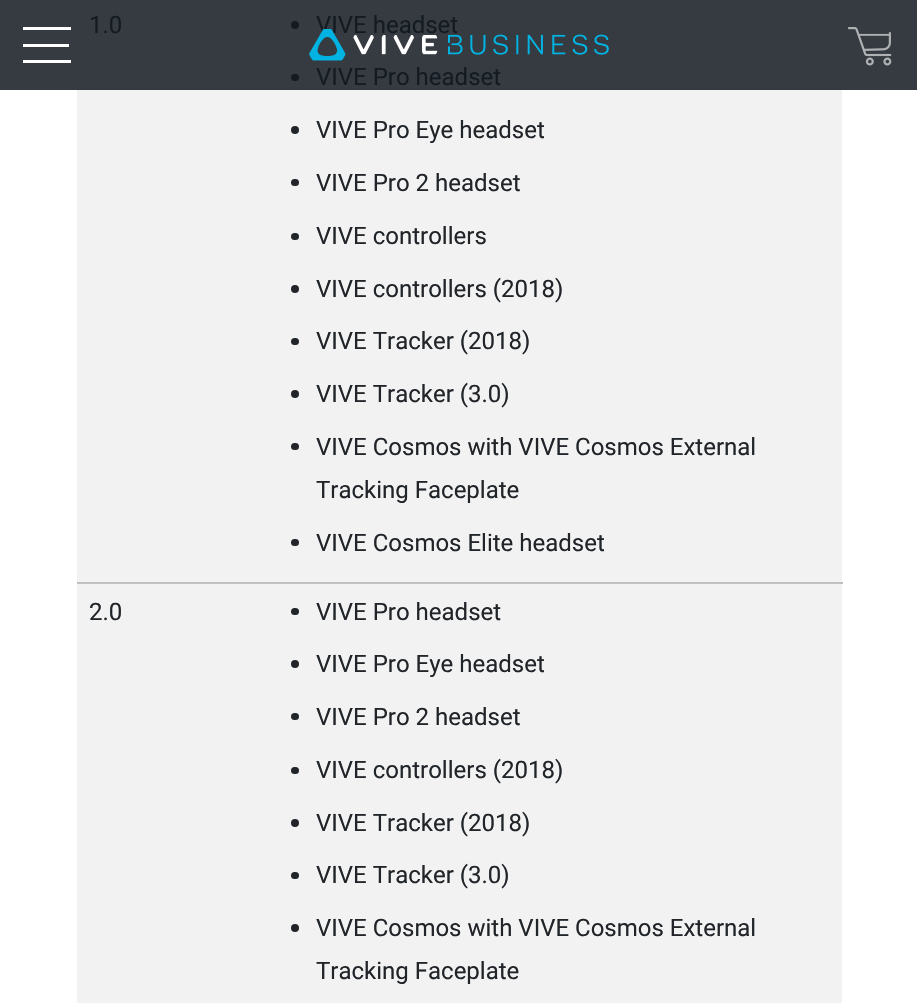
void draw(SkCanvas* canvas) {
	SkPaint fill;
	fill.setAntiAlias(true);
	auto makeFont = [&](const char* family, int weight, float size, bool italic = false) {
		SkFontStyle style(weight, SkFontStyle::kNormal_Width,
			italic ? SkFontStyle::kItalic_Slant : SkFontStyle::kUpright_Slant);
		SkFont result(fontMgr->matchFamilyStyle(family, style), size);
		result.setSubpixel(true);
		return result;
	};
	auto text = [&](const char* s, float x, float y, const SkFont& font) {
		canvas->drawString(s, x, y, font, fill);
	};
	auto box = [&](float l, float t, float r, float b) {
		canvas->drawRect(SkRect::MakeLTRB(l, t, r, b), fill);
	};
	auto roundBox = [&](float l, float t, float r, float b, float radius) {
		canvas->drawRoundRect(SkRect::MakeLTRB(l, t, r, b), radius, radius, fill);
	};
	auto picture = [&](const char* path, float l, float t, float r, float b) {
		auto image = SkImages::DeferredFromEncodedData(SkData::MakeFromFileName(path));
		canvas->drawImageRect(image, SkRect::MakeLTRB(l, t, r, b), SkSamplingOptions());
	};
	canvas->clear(0xFFFFFFFF);
	fill.setColor(0xFF353B41);
	box(0, 0, 917, 90);
	fill.setColor(0xFFF2F2F2);
	box(77, 90, 842, 582);
	fill.setColor(0xFF131A21);
	canvas->drawCircle(295, 25, 4, fill);
	roundBox(291, 74, 299, 81, 3.5f);
	fill.setColor(0xFF212529);
	canvas->drawCircle(295, 130, 4, fill);
	roundBox(291, 179, 299, 186, 3.5f);
	roundBox(291, 233, 299, 240, 3.5f);
	canvas->drawCircle(295, 289, 4, fill);
	roundBox(291, 338, 299, 345, 3.5f);
	canvas->drawCircle(295, 394, 4, fill);
	roundBox(291, 443, 299, 450, 3.5f);
	roundBox(291, 539, 299, 546, 3.5f);
	fill.setColor(0xFFF2F2F2);
	box(77, 584, 842, 1003);
	fill.setColor(0xFFC0C0C0);
	box(77, 582, 843, 584);
	fill.setColor(0xFF212529);
	roundBox(291, 608, 299, 615, 3.5f);
	canvas->drawCircle(295, 664, 4, fill);
	roundBox(291, 713, 299, 720, 3.5f);
	roundBox(291, 767, 299, 774, 3.5f);
	canvas->drawCircle(295, 823, 4, fill);
	roundBox(291, 872, 299, 879, 3.5f);
	canvas->drawCircle(295, 928, 4, fill);
	fill.setColor(0xFFFFFFFF);
	box(23, 44, 69, 47);
	box(23, 27, 71, 30);
	box(23, 60, 71, 63);
	picture("image1.png", 847, 27, 892, 66);
	auto font1 = makeFont("Roboto", 400, 24);
	fill.setColor(0xFF131A21);
	text("1.0", 89, 33, font1);
	text("VIVE headset", 316, 33, font1);
	text("VIVE Pro headset", 316, 85, font1);
	fill.setColor(0xFF212529);
	text("VIVE Pro Eye headset", 316, 138, font1);
	text("VIVE Pro 2 headset", 316, 191, font1);
	text("VIVE controllers", 316, 244, font1);
	text("VIVE controllers (2018)", 316, 297, font1);
	text("VIVE Tracker (2018)", 316, 349, font1);
	text("VIVE Tracker (3.0)", 316, 402, font1);
	text("VIVE Cosmos with VIVE Cosmos External", 316, 455, font1);
	text("Tracking Faceplate", 316, 498, font1);
	text("VIVE Cosmos Elite headset", 316, 551, font1);
	text("2.0", 89, 620, font1);
	text("VIVE Pro headset", 316, 620, font1);
	text("VIVE Pro Eye headset", 316, 672, font1);
	text("VIVE Pro 2 headset", 316, 725, font1);
	text("VIVE controllers (2018)", 316, 778, font1);
	text("VIVE Tracker (2018)", 316, 831, font1);
	text("VIVE Tracker (3.0)", 316, 883, font1);
	text("VIVE Cosmos with VIVE Cosmos External", 316, 936, font1);
	text("Tracking Faceplate", 316, 979, font1);
	picture("image0.png", 309, 29, 609, 61);
}
